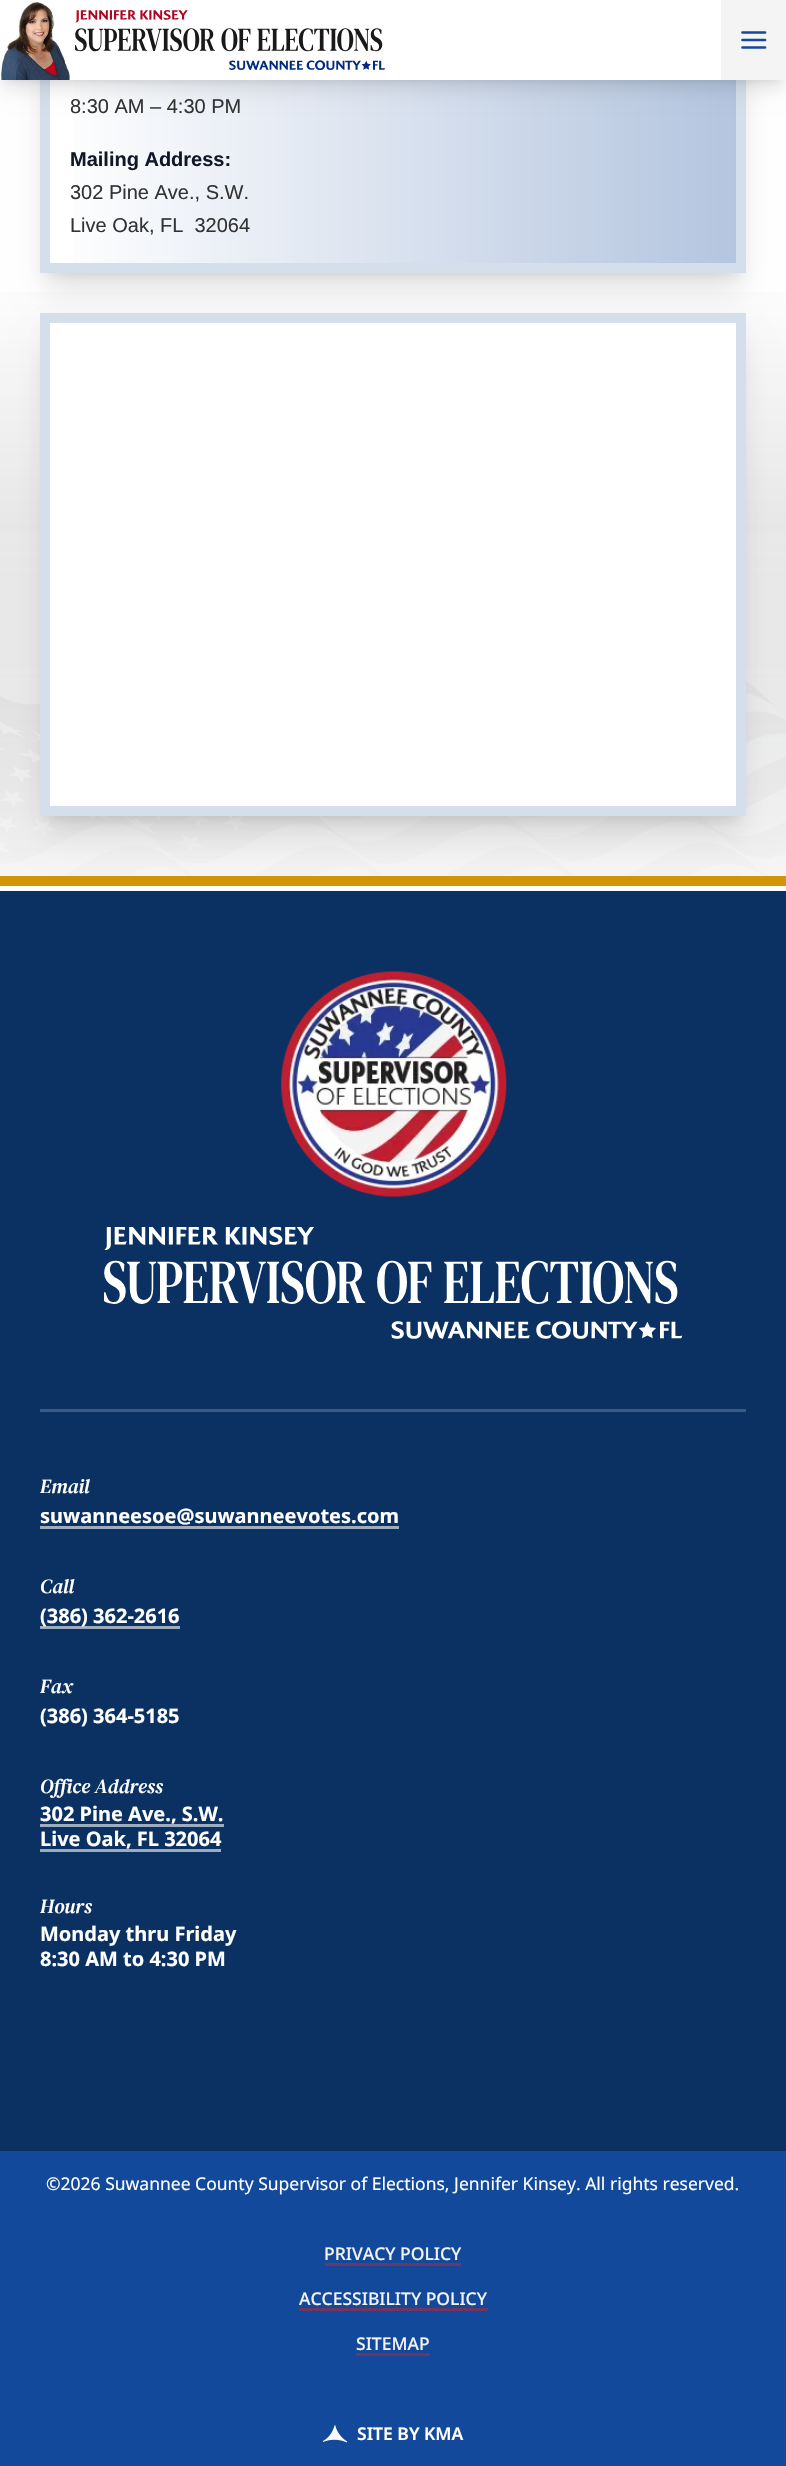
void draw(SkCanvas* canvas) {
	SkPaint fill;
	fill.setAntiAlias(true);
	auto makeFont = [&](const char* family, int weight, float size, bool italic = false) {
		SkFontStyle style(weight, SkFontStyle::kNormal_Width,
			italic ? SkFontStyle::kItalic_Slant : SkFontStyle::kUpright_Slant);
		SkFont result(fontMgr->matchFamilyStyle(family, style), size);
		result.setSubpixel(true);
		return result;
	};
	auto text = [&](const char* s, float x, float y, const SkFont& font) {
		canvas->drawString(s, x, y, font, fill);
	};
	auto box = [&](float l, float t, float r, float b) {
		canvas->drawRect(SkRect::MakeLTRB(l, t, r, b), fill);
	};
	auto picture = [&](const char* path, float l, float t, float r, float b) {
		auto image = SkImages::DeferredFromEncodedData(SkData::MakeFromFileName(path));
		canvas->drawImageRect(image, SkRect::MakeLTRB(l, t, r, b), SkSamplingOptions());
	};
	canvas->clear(0xFFFFFFFF);
	{
		const SkColor colors[] = {0xFFCACACA, 0xFFFFFFFF, 0xFFFFFFFF};
		const float stops[] = {0, 0.5f, 1};
		const SkPoint ends[] = {{393, 876}, {393, -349}};
		fill.setShader(SkGradientShader::MakeLinear(ends, colors, stops, 3, SkTileMode::kClamp));
		fill.setAlpha(255);
	}
	box(0, 292, 786, 876);
	canvas->save();
	canvas->clipPath(SkPathBuilder(SkPathFillType::kEvenOdd).moveTo(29, 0).lineTo(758, 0).lineTo(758, 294).lineTo(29, 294).close().moveTo(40, -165).lineTo(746, -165).lineTo(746, 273).lineTo(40, 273).close().detach(), true);
	fill.setShader(nullptr);
	fill.setColor(0x1A000000);
	fill.setMaskFilter(SkMaskFilter::MakeBlur(kNormal_SkBlurStyle, 6));
	canvas->drawRect(SkRect::MakeLTRB(48, -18, 739, 275), fill);
	fill.setMaskFilter(nullptr);
	canvas->restore();
	canvas->save();
	canvas->clipPath(SkPathBuilder(SkPathFillType::kEvenOdd).moveTo(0, 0).lineTo(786, 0).lineTo(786, 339).lineTo(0, 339).close().moveTo(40, -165).lineTo(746, -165).lineTo(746, 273).lineTo(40, 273).close().detach(), true);
	fill.setMaskFilter(SkMaskFilter::MakeBlur(kNormal_SkBlurStyle, 15.5f));
	canvas->drawRect(SkRect::MakeLTRB(46, -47, 740, 291), fill);
	fill.setMaskFilter(nullptr);
	canvas->restore();
	fill.setStyle(SkPaint::kStroke_Style);
	fill.setStrokeWidth(10);
	fill.setColor(0x332E5E99);
	canvas->drawRect(SkRect::MakeLTRB(45, -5, 741, 268), fill);
	fill.setStyle(SkPaint::kFill_Style);
	{
		const SkColor colors[] = {0xFFB4C5DF, 0xFFFFFFFF};
		const float stops[] = {0, 1};
		const SkPoint ends[] = {{736, 54}, {50, 54}};
		fill.setShader(SkGradientShader::MakeLinear(ends, colors, stops, 2, SkTileMode::kClamp));
		fill.setAlpha(255);
	}
	box(73, 80, 736, 263);
	fill.setShader(nullptr);
	fill.setColor(0x1A000000);
	fill.setMaskFilter(SkMaskFilter::MakeBlur(kNormal_SkBlurStyle, 4));
	canvas->drawRect(SkRect::MakeLTRB(5, 10, 781, 80), fill);
	fill.setMaskFilter(nullptr);
	fill.setMaskFilter(SkMaskFilter::MakeBlur(kNormal_SkBlurStyle, 9.5f));
	canvas->drawRect(SkRect::MakeLTRB(4, 16, 783, 89), fill);
	fill.setMaskFilter(nullptr);
	fill.setColor(0xFFFFFFFF);
	box(0, 0, 721, 80);
	picture("image0.png", 1, 2, 70, 80);
	picture("image1.png", 75, 10, 385, 70);
	fill.setColor(0xFFF4F4F5);
	box(721, 0, 786, 80);
	fill.setStyle(SkPaint::kStroke_Style);
	fill.setStrokeWidth(2.7f);
	fill.setStrokeCap(SkPaint::kRound_Cap);
	fill.setColor(0xFF13499A);
	canvas->drawPath(SkPathBuilder().moveTo(765, 32.5f).lineTo(742.5f, 32.5f).moveTo(765, 40).lineTo(742.5f, 40).moveTo(765, 47.5f).lineTo(742.5f, 47.5f).detach(), fill);
	picture("image2.png", 0, 681, 786, 876);
	fill.setStyle(SkPaint::kFill_Style);
	{
		const SkColor colors[] = {0xCCFFFFFF, 0x00FFFFFF};
		const float stops[] = {0, 1};
		const SkPoint ends[] = {{393, 876}, {393, 476}};
		fill.setShader(SkGradientShader::MakeLinear(ends, colors, stops, 2, SkTileMode::kClamp));
		fill.setAlpha(255);
	}
	box(0, 532, 786, 876);
	fill.setShader(nullptr);
	fill.setColor(0x1A000000);
	fill.setMaskFilter(SkMaskFilter::MakeBlur(kNormal_SkBlurStyle, 6));
	canvas->drawRect(SkRect::MakeLTRB(48, 330, 739, 819), fill);
	fill.setMaskFilter(nullptr);
	fill.setColor(0xFFD19605);
	box(0, 876, 786, 886);
	fill.setColor(0x1A000000);
	fill.setMaskFilter(SkMaskFilter::MakeBlur(kNormal_SkBlurStyle, 15.5f));
	canvas->drawRect(SkRect::MakeLTRB(46, 344, 740, 835), fill);
	fill.setMaskFilter(nullptr);
	fill.setColor(0xFFFFFFFF);
	canvas->drawRect(SkRect::MakeLTRB(45, 318, 741, 811), fill);
	fill.setStyle(SkPaint::kStroke_Style);
	fill.setStrokeWidth(10);
	fill.setStrokeCap(SkPaint::kButt_Cap);
	fill.setColor(0xFFD5DFEB);
	canvas->drawRect(SkRect::MakeLTRB(45, 318, 741, 811), fill);
	fill.setStyle(SkPaint::kFill_Style);
	fill.setColor(0xFF0A3161);
	box(0, 891, 786, 2151);
	picture("image3.png", 281, 971, 507, 1197);
	picture("image4.png", 104, 1227, 683, 1339);
	fill.setColor(0xFF3B5A81);
	box(40, 1409, 746, 1412);
	fill.setColor(0xFF9DADC0);
	box(40, 1526, 399, 1529);
	box(40, 1626, 180, 1629);
	box(40, 1824, 224, 1827);
	box(40, 1849, 221, 1852);
	fill.setColor(0xFF13499A);
	box(0, 2151, 786, 2466);
	fill.setColor(0xFF723561);
	box(325, 2263, 461, 2266);
	box(299, 2308, 488, 2311);
	box(356, 2353, 430, 2356);
	picture("image5.png", 323, 2425, 348, 2443);
	auto font1 = makeFont("Liberation Sans", 400, 20);
	fill.setColor(0xFF333333);
	text("8:30 AM – 4:30 PM", 70, 113, font1);
	auto font2 = makeFont("Liberation Sans", 700, 20);
	fill.setColor(0xFF111827);
	text("Mailing Address:", 70, 166, font2);
	fill.setColor(0xFF333333);
	text("302 Pine Ave., S.W.", 70, 199, font1);
	text("Live Oak, FL  32064", 70, 232, font1);
	auto font3 = makeFont("DM Serif Text", 400, 20, true);
	fill.setColor(0xFFFFFFFF);
	text("Email", 40, 1493, font3);
	auto font4 = makeFont("Noto Sans", 700, 20);
	text("suwanneesoe@suwanneevotes.com", 40, 1523, font4);
	text("Call", 40, 1593, font3);
	text("(386) 362-2616", 40, 1623, font4);
	text("Fax", 40, 1693, font3);
	text("(386) 364-5185", 40, 1723, font4);
	text("Office Address", 40, 1793, font3);
	text("302 Pine Ave., S.W.", 40, 1821, font4);
	text("Live Oak, FL 32064", 40, 1846, font4);
	text("Hours", 40, 1913, font3);
	text("Monday thru Friday", 40, 1941, font4);
	text("8:30 AM to 4:30 PM", 40, 1966, font4);
	auto font5 = makeFont("Noto Sans", 400, 17.5f);
	text("©2026 Suwannee County Supervisor of Elections, Jennifer Kinsey. All rights reserved.", 46, 2190, font5);
	auto font6 = makeFont("Noto Sans", 500, 17.5f);
	fill.setColor(0xFFF3F3F3);
	text("PRIVACY POLICY", 324, 2260, font6);
	text("ACCESSIBILITY POLICY", 299, 2305, font6);
	text("SITEMAP", 356, 2350, font6);
	auto font7 = makeFont("Noto Sans", 600, 17.5f);
	fill.setColor(0xFFFFFFFF);
	text("SITE BY KMA", 357, 2440, font7);
}
